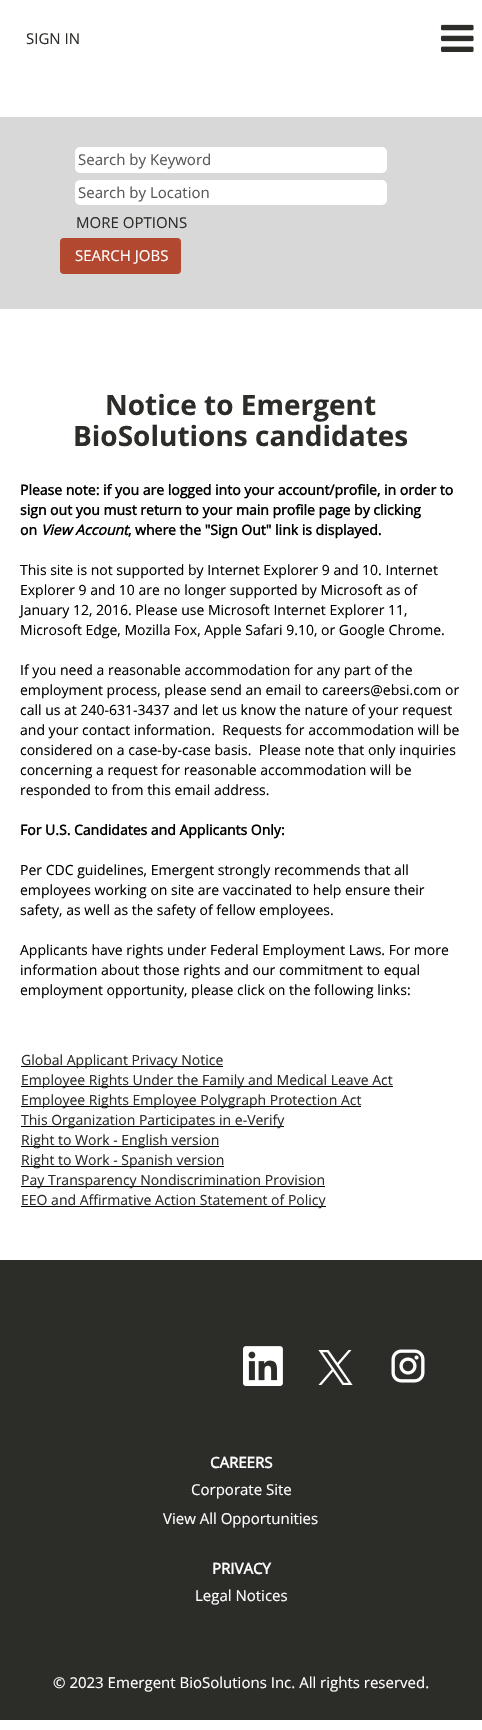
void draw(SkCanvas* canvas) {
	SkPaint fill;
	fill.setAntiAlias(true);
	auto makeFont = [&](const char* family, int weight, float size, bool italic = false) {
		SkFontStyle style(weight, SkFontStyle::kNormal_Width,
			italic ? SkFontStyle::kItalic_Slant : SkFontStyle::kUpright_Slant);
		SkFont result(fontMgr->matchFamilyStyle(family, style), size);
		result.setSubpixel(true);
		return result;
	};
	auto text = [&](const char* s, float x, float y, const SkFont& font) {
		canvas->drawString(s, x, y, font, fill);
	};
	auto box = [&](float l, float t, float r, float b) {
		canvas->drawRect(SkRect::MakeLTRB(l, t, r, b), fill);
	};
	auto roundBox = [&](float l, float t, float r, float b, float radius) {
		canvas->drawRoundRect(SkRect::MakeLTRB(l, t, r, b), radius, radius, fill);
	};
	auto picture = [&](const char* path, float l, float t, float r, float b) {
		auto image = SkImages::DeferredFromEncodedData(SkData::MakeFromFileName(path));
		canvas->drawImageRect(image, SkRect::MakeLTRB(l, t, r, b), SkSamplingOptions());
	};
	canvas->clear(0xFFFFFFFF);
	picture("image0.png", 441, 24, 474, 52);
	fill.setColor(0xFFD8D8D8);
	box(0, 117, 482, 309);
	fill.setColor(0xFFFFFFFF);
	roundBox(75, 147, 387, 173, 5);
	roundBox(75, 180, 387, 205, 5);
	fill.setColor(0xFFB24830);
	roundBox(60, 238, 181, 274, 4);
	fill.setColor(0xFF000000);
	box(21, 1066, 223, 1067);
	box(21, 1086, 393, 1087);
	box(21, 1106, 361, 1107);
	box(21, 1126, 284, 1127);
	box(21, 1146, 219, 1147);
	box(21, 1166, 224, 1167);
	box(21, 1186, 325, 1187);
	box(21, 1206, 326, 1207);
	fill.setColor(0xFF2C2C29);
	box(0, 1260, 482, 1720);
	picture("image1.png", 243, 1346, 283, 1386);
	picture("image2.png", 318, 1350, 353, 1385);
	picture("image3.png", 391, 1349, 425, 1383);
	auto font1 = makeFont("Open Sans", 400, 15);
	text("SIGN IN", 26, 44, font1);
	fill.setColor(0xFF595959);
	text("Search by Keyword", 78, 165, font1);
	text("Search by Location", 78, 198, font1);
	fill.setColor(0xFF2C2C29);
	text("MORE OPTIONS", 76, 228, font1);
	fill.setColor(0xFFFFFFFF);
	text("SEARCH JOBS", 75, 261, font1);
	auto font2 = makeFont("Open Sans", 700, 28);
	fill.setColor(0xFF2C2C29);
	text("Notice to Emergent", 105, 415, font2);
	text("BioSolutions candidates", 73, 446, font2);
	auto font3 = makeFont("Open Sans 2", 700, 14);
	fill.setColor(0xFF000000);
	text("Please note: if you are logged into your account/profile, in order to", 20, 495, font3);
	text("sign out you must return to your main profile page by clicking", 20, 515, font3);
	text("on", 20, 535, font3);
	auto font4 = makeFont("Open Sans", 700, 14, true);
	text("View Account", 41, 535, font4);
	text(", where the \"Sign Out\" link is displayed.", 128, 535, font3);
	auto font5 = makeFont("Open Sans", 400, 14);
	text("This site is not supported by Internet Explorer 9 and 10. Internet", 20, 575, font5);
	text("Explorer 9 and 10 are no longer supported by Microsoft as of", 20, 595, font5);
	text("January 12, 2016. Please use Microsoft Internet Explorer 11,", 20, 615, font5);
	text("Microsoft Edge, Mozilla Fox, Apple Safari 9.10, or Google Chrome.", 20, 635, font5);
	text("If you need a reasonable accommodation for any part of the", 20, 675, font5);
	text("employment process, please send an email to careers@ebsi.com or", 20, 695, font5);
	text("call us at 240-631-3437 and let us know the nature of your request", 20, 715, font5);
	text("and your contact information.  Requests for accommodation will be", 20, 735, font5);
	text("considered on a case-by-case basis.  Please note that only inquiries", 20, 755, font5);
	text("concerning a request for reasonable accommodation will be", 20, 775, font5);
	text("responded to from this email address.", 20, 795, font5);
	text("For U.S. Candidates and Applicants Only:", 20, 835, font3);
	text("Per CDC guidelines, Emergent strongly recommends that all", 20, 875, font5);
	text("employees working on site are vaccinated to help ensure their", 20, 895, font5);
	text("safety, as well as the safety of fellow employees.", 20, 915, font5);
	text("Applicants have rights under Federal Employment Laws. For more", 20, 955, font5);
	text("information about those rights and our commitment to equal", 20, 975, font5);
	text("employment opportunity, please click on the following links:", 20, 995, font5);
	fill.setColor(0xFF2C2C29);
	text("Global Applicant Privacy Notice", 21, 1065, font5);
	text("Employee Rights Under the Family and Medical Leave Act", 21, 1085, font5);
	text("Employee Rights Employee Polygraph Protection Act", 21, 1105, font5);
	text("This Organization Participates in e-Verify", 21, 1125, font5);
	text("Right to Work - English version", 21, 1145, font5);
	text("Right to Work - Spanish version", 21, 1165, font5);
	text("Pay Transparency Nondiscrimination Provision", 21, 1185, font5);
	text("EEO and Affirmative Action Statement of Policy", 21, 1205, font5);
	auto font6 = makeFont("Open Sans 2", 700, 15);
	fill.setColor(0xFFFFFFFF);
	text("CAREERS", 210, 1468, font6);
	text("Corporate Site", 191, 1495, font1);
	text("View All Opportunities", 163, 1524, font1);
	text("PRIVACY", 212, 1574, font6);
	text("Legal Notices", 195, 1601, font1);
	text("© 2023 Emergent BioSolutions Inc. All rights reserved.", 53, 1688, font1);
}
